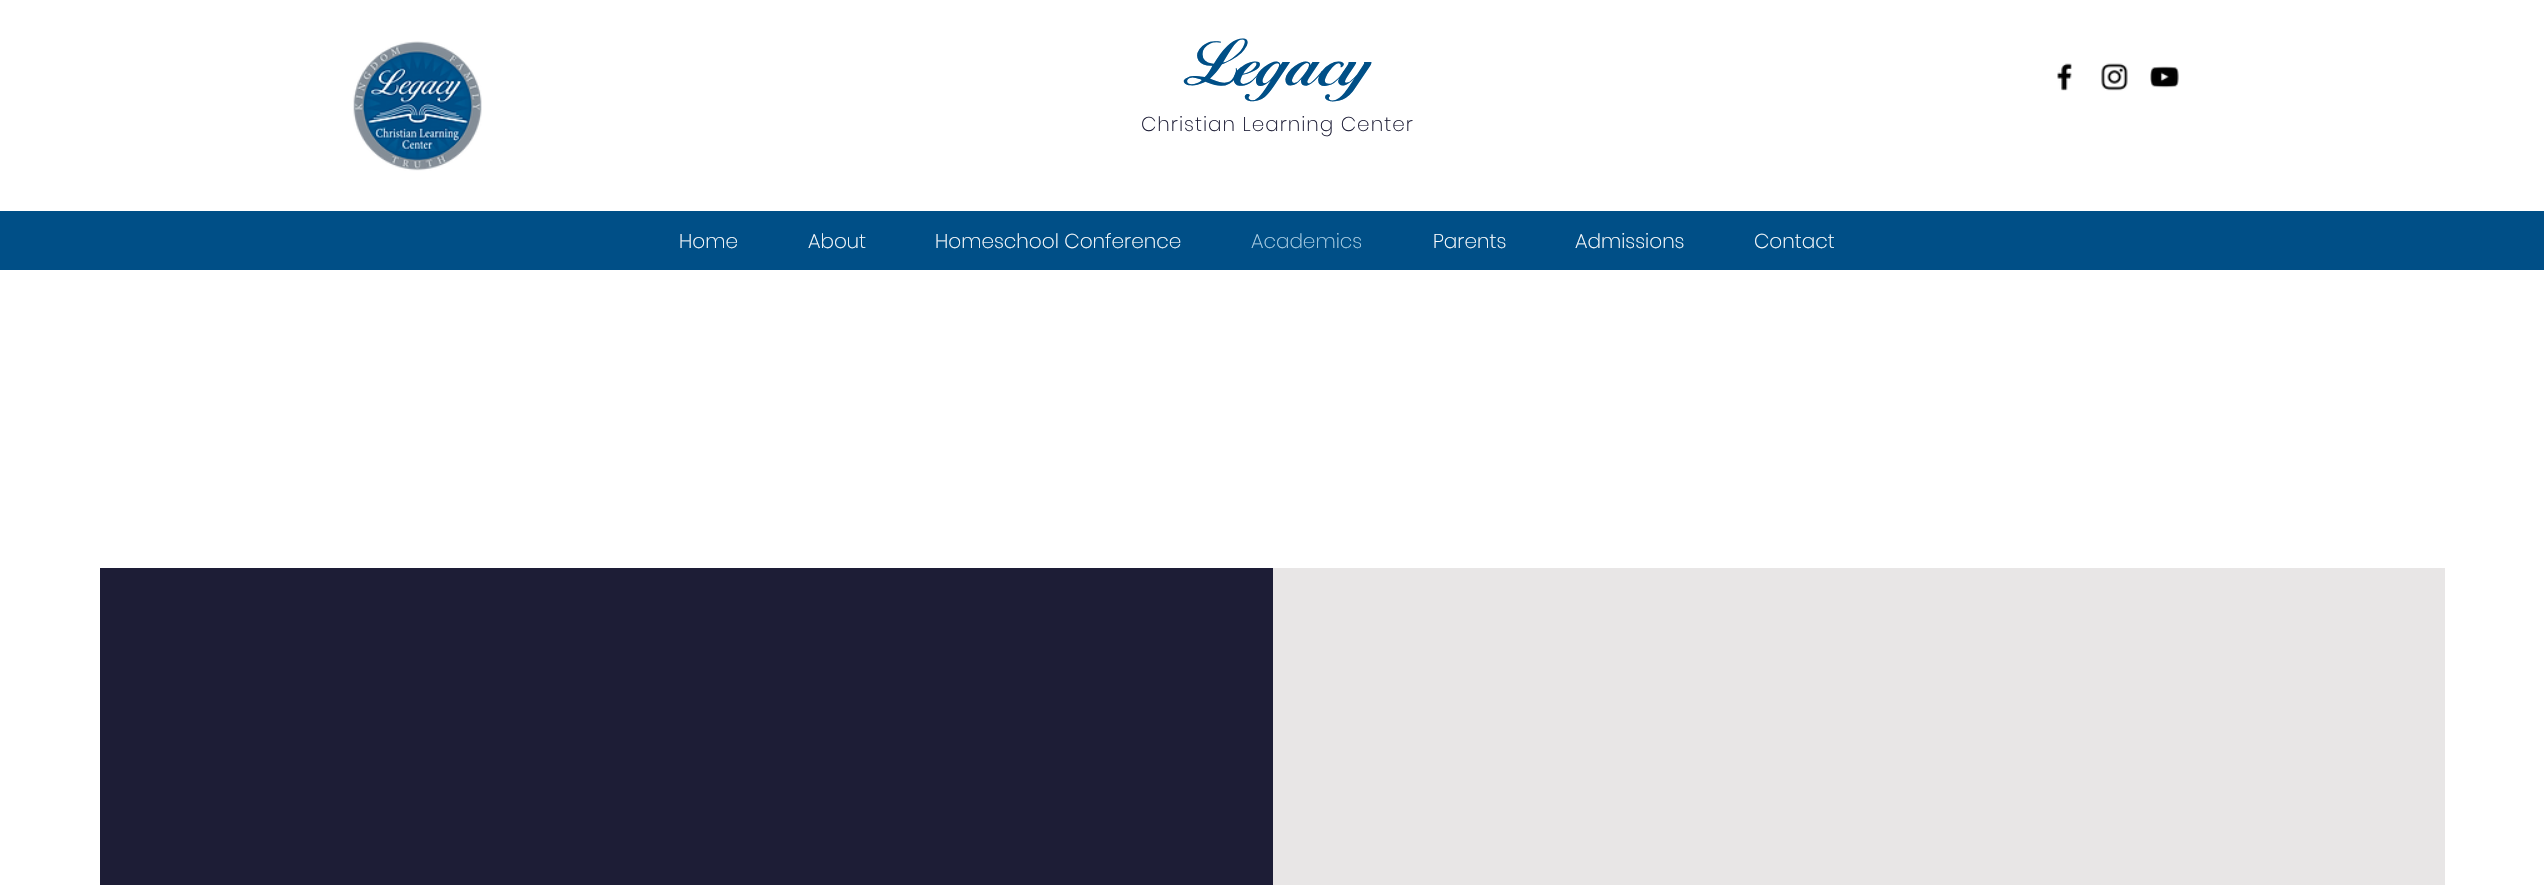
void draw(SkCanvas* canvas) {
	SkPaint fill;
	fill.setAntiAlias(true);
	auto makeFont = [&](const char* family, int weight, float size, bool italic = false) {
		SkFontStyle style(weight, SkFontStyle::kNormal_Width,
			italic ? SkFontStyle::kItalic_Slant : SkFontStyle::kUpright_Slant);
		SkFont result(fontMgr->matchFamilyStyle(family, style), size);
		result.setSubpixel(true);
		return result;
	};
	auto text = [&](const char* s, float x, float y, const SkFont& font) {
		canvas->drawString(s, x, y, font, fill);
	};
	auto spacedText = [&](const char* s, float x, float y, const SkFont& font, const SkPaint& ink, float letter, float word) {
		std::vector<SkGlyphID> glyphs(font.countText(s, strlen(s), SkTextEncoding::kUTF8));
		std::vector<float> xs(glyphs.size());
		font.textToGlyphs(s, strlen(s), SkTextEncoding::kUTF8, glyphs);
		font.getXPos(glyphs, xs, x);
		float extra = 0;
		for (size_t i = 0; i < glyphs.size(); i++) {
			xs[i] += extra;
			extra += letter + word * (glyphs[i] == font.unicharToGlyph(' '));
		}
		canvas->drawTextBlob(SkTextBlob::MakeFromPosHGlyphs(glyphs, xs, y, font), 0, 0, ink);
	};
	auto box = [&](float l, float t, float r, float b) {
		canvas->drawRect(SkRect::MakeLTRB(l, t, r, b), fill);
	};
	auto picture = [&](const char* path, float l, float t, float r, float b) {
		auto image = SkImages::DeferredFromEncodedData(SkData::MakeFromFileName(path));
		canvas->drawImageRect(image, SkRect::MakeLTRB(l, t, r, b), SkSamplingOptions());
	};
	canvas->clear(0xFFFFFFFF);
	picture("image0.png", 353, 41, 482, 171);
	picture("image1.png", 2057, 63, 2072, 91);
	picture("image2.png", 2101, 63, 2128, 91);
	picture("image3.png", 2150, 66, 2179, 88);
	fill.setColor(0xFF004F87);
	box(0, 211, 2544, 270);
	fill.setColor(0xFF1D1D36);
	box(100, 568, 1273, 885);
	fill.setColor(0xFFE8E6E6);
	box(1273, 568, 2445, 885);
	auto font1 = makeFont("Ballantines", 400, 91);
	fill.setColor(0xFF004F87);
	text("Legacy", 1189, 85, font1);
	auto font2 = makeFont("Poppins", 200, 20);
	fill.setColor(0xFF1D1D36);
	spacedText("Christian Learning Center", 1141, 131, font2, fill, 1, 0);
	fill.setColor(0xFFFFFFFF);
	text("Home", 679, 248, font2);
	text("About", 808, 248, font2);
	text("Homeschool Conference", 935, 248, font2);
	fill.setColor(0xFFACCFE5);
	text("Academics", 1251, 248, font2);
	fill.setColor(0xFFFFFFFF);
	text("Parents", 1433, 248, font2);
	text("Admissions", 1575, 248, font2);
	text("Contact", 1754, 248, font2);
}
